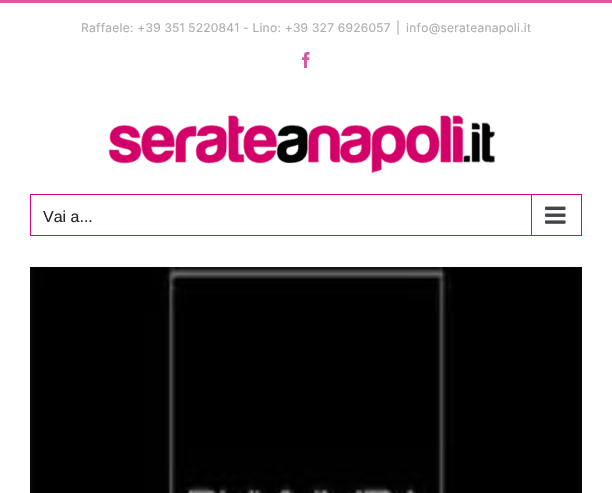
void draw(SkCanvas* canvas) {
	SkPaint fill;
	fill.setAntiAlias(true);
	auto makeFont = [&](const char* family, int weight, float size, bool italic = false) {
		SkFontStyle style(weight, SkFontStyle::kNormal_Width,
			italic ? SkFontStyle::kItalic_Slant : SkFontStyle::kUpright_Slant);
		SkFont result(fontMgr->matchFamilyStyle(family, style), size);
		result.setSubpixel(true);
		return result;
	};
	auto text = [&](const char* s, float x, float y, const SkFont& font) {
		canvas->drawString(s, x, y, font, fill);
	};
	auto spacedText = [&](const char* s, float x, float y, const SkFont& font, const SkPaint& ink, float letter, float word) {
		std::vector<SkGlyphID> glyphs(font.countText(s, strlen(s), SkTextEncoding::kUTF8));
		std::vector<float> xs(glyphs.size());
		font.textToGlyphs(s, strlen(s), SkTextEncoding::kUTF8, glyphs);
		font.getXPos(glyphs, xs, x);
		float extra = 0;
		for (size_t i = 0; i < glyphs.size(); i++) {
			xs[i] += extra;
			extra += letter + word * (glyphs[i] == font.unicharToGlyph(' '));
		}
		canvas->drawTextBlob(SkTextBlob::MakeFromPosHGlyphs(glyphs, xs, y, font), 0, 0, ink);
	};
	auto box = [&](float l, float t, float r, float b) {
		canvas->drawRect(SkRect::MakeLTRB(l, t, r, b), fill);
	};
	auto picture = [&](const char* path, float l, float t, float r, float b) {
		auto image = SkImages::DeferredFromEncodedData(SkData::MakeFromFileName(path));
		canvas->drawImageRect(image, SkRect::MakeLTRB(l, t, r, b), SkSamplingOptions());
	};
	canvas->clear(0xFFFFFFFF);
	fill.setColor(0xFFD9599F);
	box(0, 0, 612, 3);
	picture("image0.png", 302, 52, 310, 68);
	picture("image1.png", 108, 114, 497, 174);
	fill.setStyle(SkPaint::kStroke_Style);
	fill.setStrokeWidth(1);
	fill.setColor(0xFFD90479);
	canvas->drawRect(SkRect::MakeLTRB(30.5f, 194.5f, 581.5f, 235.5f), fill);
	fill.setStyle(SkPaint::kFill_Style);
	box(531, 195, 532, 235);
	picture("image2.png", 545, 206, 566, 224);
	picture("image3.png", 30, 267, 582, 493);
	auto font1 = makeFont("Inter", 400, 12);
	fill.setColor(0xFFADADAD);
	spacedText("Raffaele: +39 351 5220841 - Lino: +39 327 6926057", 81, 32, font1, fill, 0.25f, 0);
	spacedText("|", 396, 32, font1, fill, 0.25f, 0);
	spacedText("info@serateanapoli.it", 406, 32, font1, fill, 0.25f, 0);
	auto font2 = makeFont("Liberation Sans", 400, 16);
	fill.setColor(0xFF232323);
	text("Vai a...", 43, 222, font2);
}
